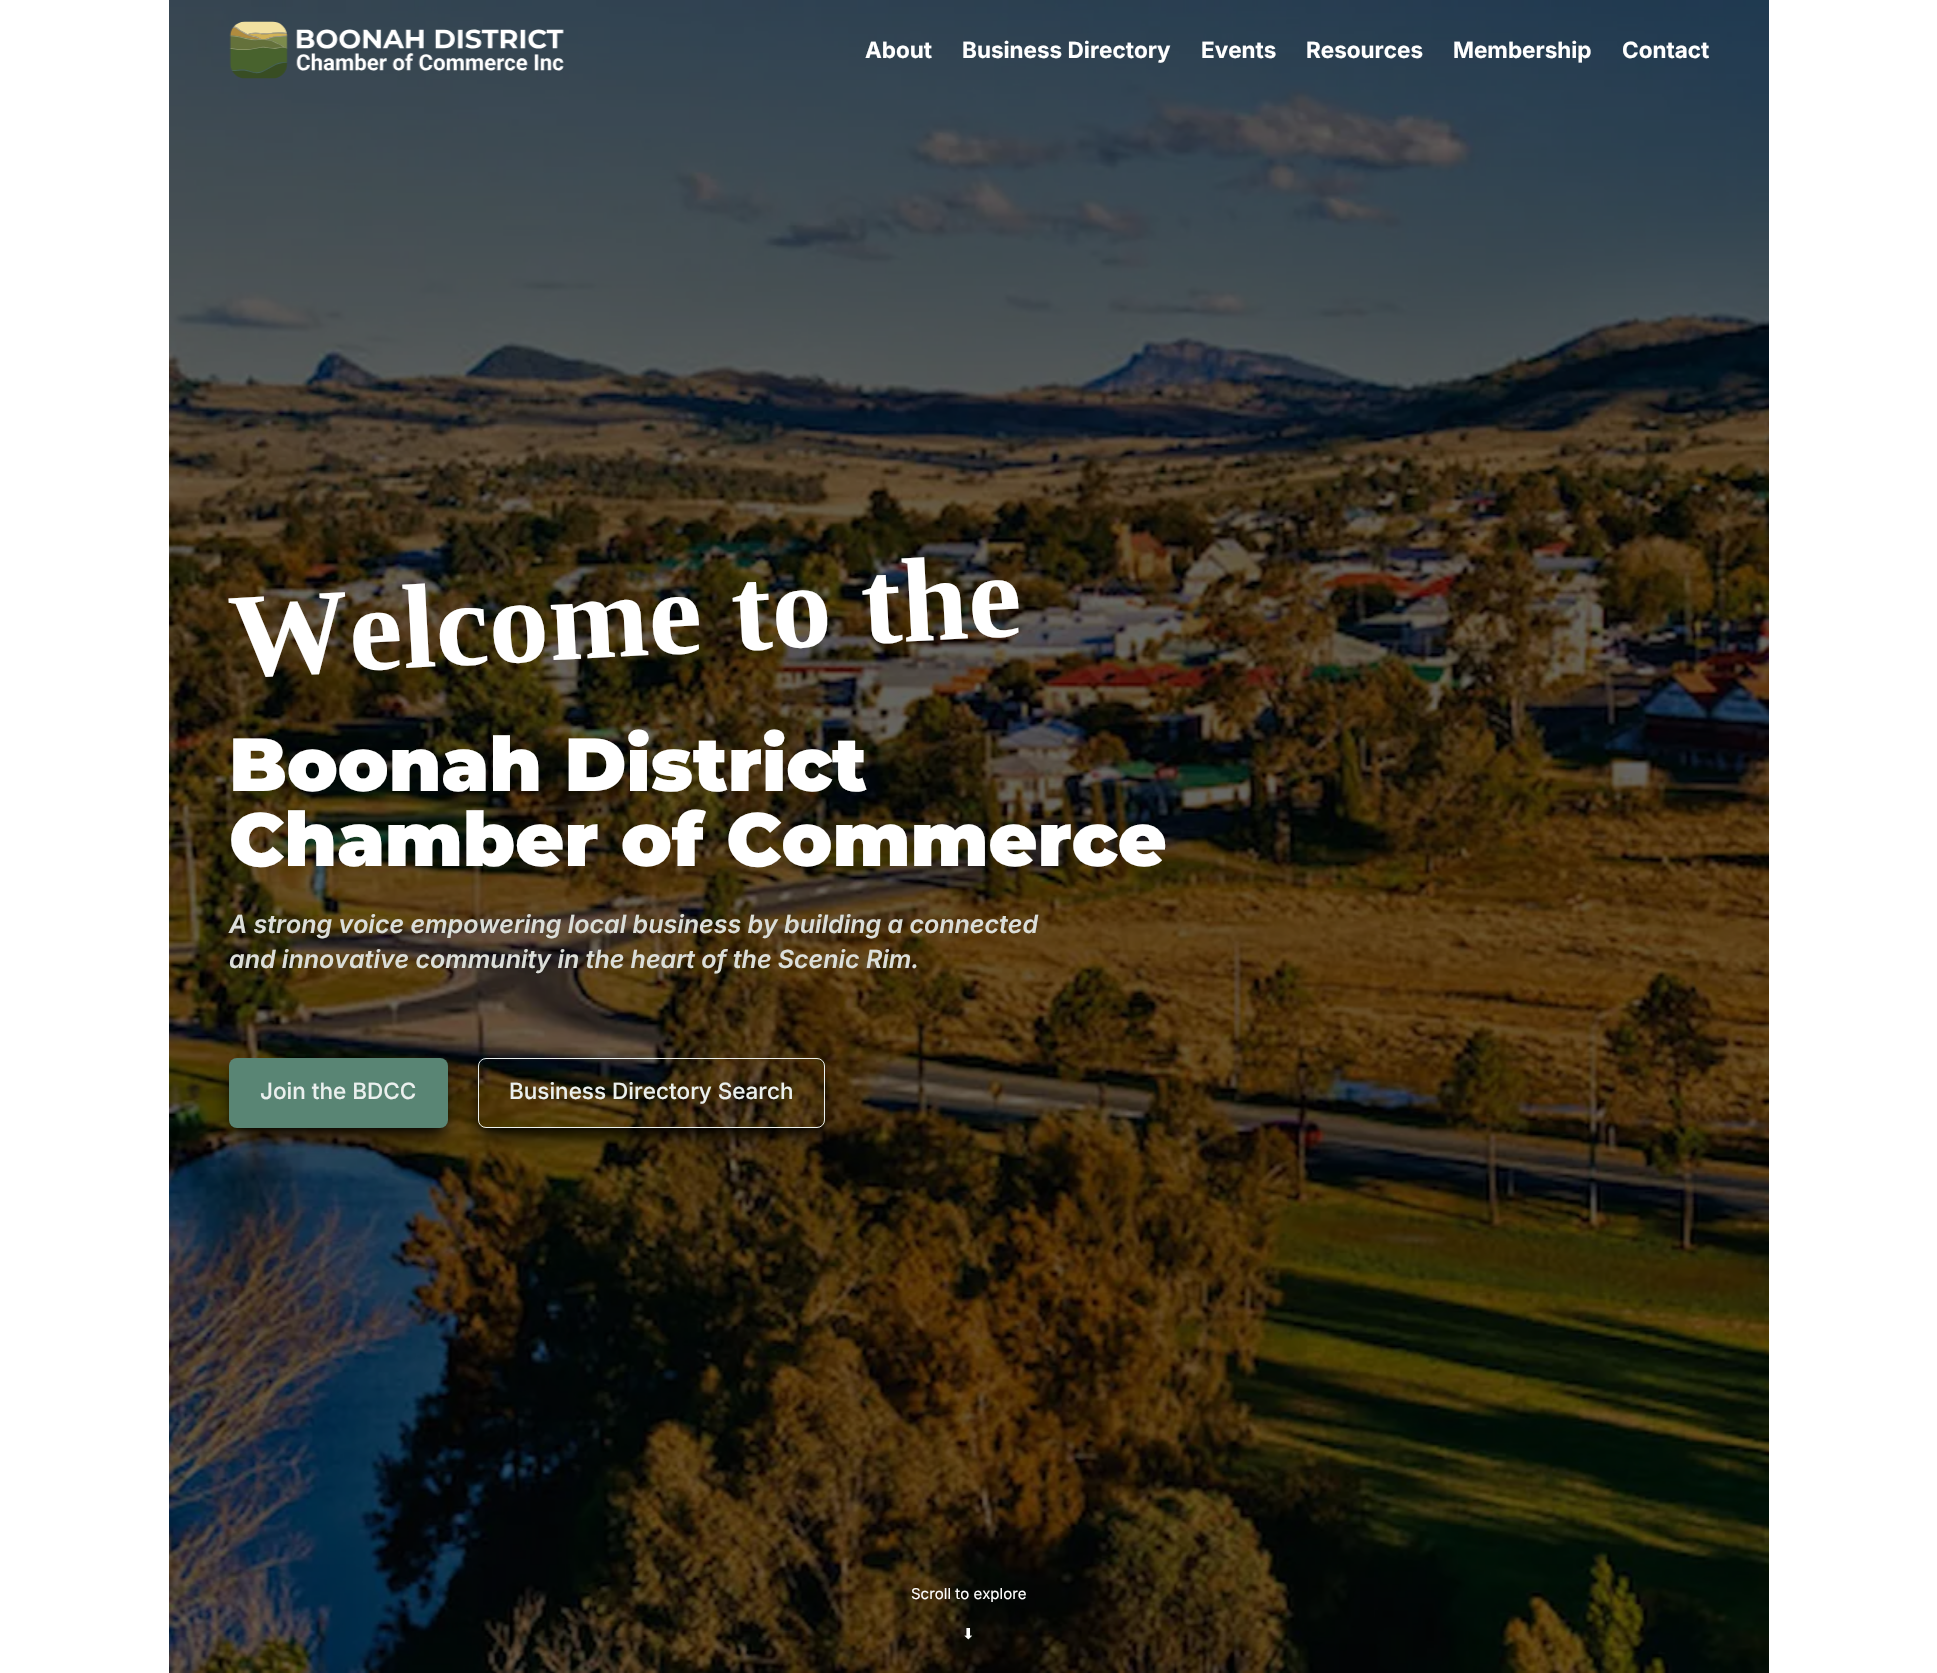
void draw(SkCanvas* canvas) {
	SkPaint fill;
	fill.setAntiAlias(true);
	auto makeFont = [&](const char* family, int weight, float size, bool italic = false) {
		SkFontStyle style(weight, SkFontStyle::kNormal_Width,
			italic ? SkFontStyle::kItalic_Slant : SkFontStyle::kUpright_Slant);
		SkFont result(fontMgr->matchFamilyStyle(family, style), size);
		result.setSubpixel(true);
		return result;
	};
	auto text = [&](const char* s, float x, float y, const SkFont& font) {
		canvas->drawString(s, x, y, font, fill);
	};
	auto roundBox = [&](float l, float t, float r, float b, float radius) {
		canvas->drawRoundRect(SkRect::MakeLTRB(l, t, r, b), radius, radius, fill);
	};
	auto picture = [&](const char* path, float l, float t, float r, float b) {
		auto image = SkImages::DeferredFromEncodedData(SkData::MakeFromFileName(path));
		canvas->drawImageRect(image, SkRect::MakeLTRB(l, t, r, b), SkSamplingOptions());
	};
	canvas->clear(0xFFFFFFFF);
	picture("image1.png", 169, 0, 1769, 1673);
	picture("image0.png", 229, 21, 564, 79);
	fill.setColor(0xD9000000);
	fill.setMaskFilter(SkMaskFilter::MakeBlur(kNormal_SkBlurStyle, 4));
	canvas->drawRoundRect(SkRect::MakeLTRB(234, 1068, 443, 1128), 2.5f, 2.5f, fill);
	fill.setMaskFilter(nullptr);
	fill.setMaskFilter(SkMaskFilter::MakeBlur(kNormal_SkBlurStyle, 9.5f));
	canvas->drawRoundRect(SkRect::MakeLTRB(233, 1074, 444, 1136), 4, 4, fill);
	fill.setMaskFilter(nullptr);
	fill.setColor(0xFF598574);
	roundBox(229, 1058, 448, 1128, 8);
	canvas->save();
	canvas->clipPath(SkPathBuilder(SkPathFillType::kEvenOdd).moveTo(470, 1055).lineTo(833, 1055).lineTo(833, 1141).lineTo(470, 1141).close().moveTo(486, 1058).lineTo(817, 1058).cubicTo(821.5f, 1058, 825, 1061.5f, 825, 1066).lineTo(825, 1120).cubicTo(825, 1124.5f, 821.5f, 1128, 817, 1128).lineTo(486, 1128).cubicTo(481.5f, 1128, 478, 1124.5f, 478, 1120).lineTo(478, 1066).cubicTo(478, 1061.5f, 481.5f, 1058, 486, 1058).close().detach(), true);
	fill.setColor(0xD9000000);
	fill.setMaskFilter(SkMaskFilter::MakeBlur(kNormal_SkBlurStyle, 4));
	canvas->drawRoundRect(SkRect::MakeLTRB(483, 1068, 820, 1128), 2.5f, 2.5f, fill);
	fill.setMaskFilter(nullptr);
	canvas->restore();
	canvas->save();
	canvas->clipPath(SkPathBuilder(SkPathFillType::kEvenOdd).moveTo(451, 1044).lineTo(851, 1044).lineTo(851, 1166).lineTo(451, 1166).close().moveTo(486, 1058).lineTo(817, 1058).cubicTo(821.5f, 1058, 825, 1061.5f, 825, 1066).lineTo(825, 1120).cubicTo(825, 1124.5f, 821.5f, 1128, 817, 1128).lineTo(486, 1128).cubicTo(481.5f, 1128, 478, 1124.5f, 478, 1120).lineTo(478, 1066).cubicTo(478, 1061.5f, 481.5f, 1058, 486, 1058).close().detach(), true);
	fill.setMaskFilter(SkMaskFilter::MakeBlur(kNormal_SkBlurStyle, 9.5f));
	canvas->drawRoundRect(SkRect::MakeLTRB(481, 1074, 821, 1136), 4, 4, fill);
	fill.setMaskFilter(nullptr);
	canvas->restore();
	fill.setStyle(SkPaint::kStroke_Style);
	fill.setStrokeWidth(1);
	fill.setColor(0xFFEBF0EE);
	canvas->drawRoundRect(SkRect::MakeLTRB(478.5f, 1058.5f, 824.5f, 1127.5f), 7.5f, 7.5f, fill);
	auto font1 = makeFont("Inter", 700, 22.5f);
	fill.setStyle(SkPaint::kFill_Style);
	fill.setColor(0xFFFFFFFF);
	text("About", 865, 58, font1);
	text("Business Directory", 962, 58, font1);
	text("Events", 1201, 58, font1);
	text("Resources", 1306, 58, font1);
	text("Membership", 1453, 58, font1);
	text("Contact", 1622, 58, font1);
	auto font2 = makeFont("Liberation Serif", 700, 120);
	canvas->save();
	canvas->rotate(-3, 231, 677);
	text("Welcome to the", 231, 677, font2);
	canvas->restore();
	auto font3 = makeFont("Montserrat", 900, 75);
	text("Boonah District", 229, 791, font3);
	text("Chamber of Commerce", 229, 866, font3);
	auto font4 = makeFont("Inter", 600, 25, true);
	fill.setColor(0xFFDBDED9);
	text("A strong voice empowering local business by building a connected", 229, 933, font4);
	text("and innovative community in the heart of the Scenic Rim.", 229, 968, font4);
	auto font5 = makeFont("Inter", 500, 22.5f);
	fill.setColor(0xFFEBF0EE);
	text("Join the BDCC", 260, 1099, font5);
	text("Business Directory Search", 509, 1099, font5);
	auto font6 = makeFont("Inter", 400, 15);
	fill.setColor(0xFFFFFFFF);
	text("Scroll to explore", 911, 1599, font6);
	auto font7 = makeFont("DejaVu Sans", 400, 15);
	text("⬇", 962, 1639, font7);
}
